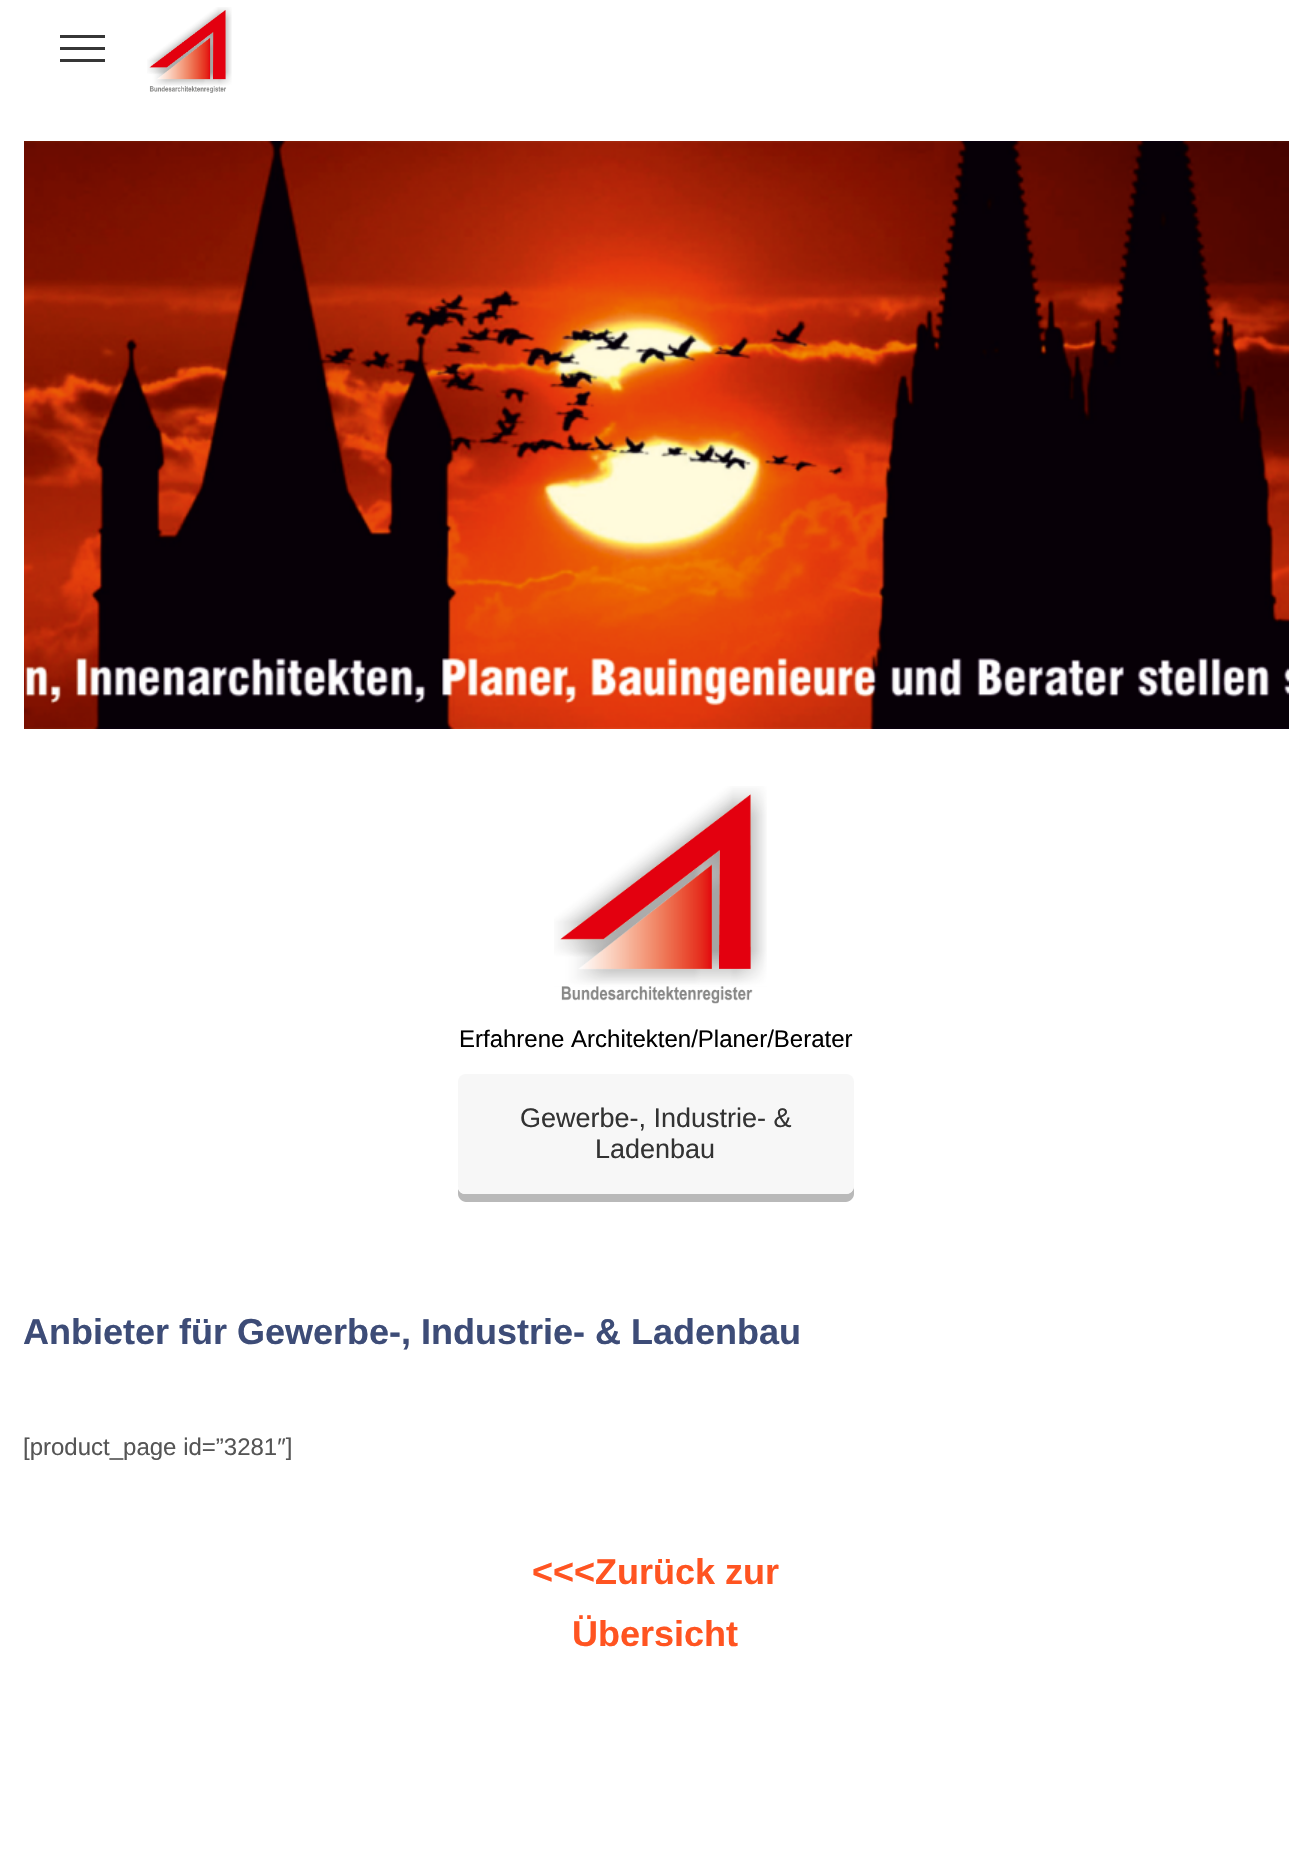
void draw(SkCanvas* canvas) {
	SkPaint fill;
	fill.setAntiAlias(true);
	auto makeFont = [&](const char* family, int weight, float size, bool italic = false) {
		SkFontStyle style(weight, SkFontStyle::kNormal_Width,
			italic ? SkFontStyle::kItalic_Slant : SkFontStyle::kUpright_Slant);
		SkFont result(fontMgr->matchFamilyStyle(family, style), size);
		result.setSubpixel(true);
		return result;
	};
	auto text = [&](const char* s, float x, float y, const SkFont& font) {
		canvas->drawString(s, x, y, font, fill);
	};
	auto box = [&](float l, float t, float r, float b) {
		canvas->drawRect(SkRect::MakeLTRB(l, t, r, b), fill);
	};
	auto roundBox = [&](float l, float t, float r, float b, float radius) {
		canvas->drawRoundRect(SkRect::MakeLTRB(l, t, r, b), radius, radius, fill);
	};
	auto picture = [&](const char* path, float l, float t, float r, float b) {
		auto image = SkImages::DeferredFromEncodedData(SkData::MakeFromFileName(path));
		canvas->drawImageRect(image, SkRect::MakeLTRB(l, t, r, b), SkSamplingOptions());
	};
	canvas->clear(0xFFFFFFFF);
	fill.setColor(0xFF363636);
	box(60, 35, 105, 38);
	box(60, 47, 105, 50);
	box(60, 59, 105, 62);
	picture("image0.png", 147, 7, 232, 93);
	picture("image1.png", 24, 141, 1289, 729);
	picture("image2.png", 554, 786, 767, 1004);
	fill.setColor(0xFFB9B9B9);
	canvas->drawPath(SkPathBuilder().moveTo(458, 1189).lineTo(458, 1194).cubicTo(458, 1198, 462, 1202, 466, 1202).lineTo(846, 1202).cubicTo(850, 1202, 854, 1198, 854, 1194).lineTo(854, 1090).lineTo(854, 1087).lineTo(854, 1186).cubicTo(854, 1191, 850, 1194, 846, 1194).lineTo(465, 1194).cubicTo(462, 1194, 459, 1192, 458, 1189).close().detach(), fill);
	fill.setColor(0xFFF7F7F7);
	roundBox(458, 1074, 854, 1194, 8);
	auto font1 = makeFont("Liberation Sans", 400, 24);
	fill.setColor(0xFF000000);
	text("Erfahrene Architekten/Planer/Berater", 459, 1047, font1);
	auto font2 = makeFont("Liberation Sans", 400, 27);
	fill.setColor(0xFF333333);
	text("Gewerbe-, Industrie- &", 520, 1127, font2);
	text("Ladenbau", 595, 1158, font2);
	auto font3 = makeFont("Liberation Sans", 700, 36);
	fill.setColor(0xFF3D4C77);
	text("Anbieter für Gewerbe-, Industrie- & Ladenbau", 23, 1344, font3);
	fill.setColor(0xFF555555);
	text("[product_page id=”3281″]", 23, 1455, font1);
	fill.setColor(0xFFFF5421);
	text("<<<Zurück zur", 532, 1584, font3);
	text("Übersicht", 572, 1646, font3);
}
